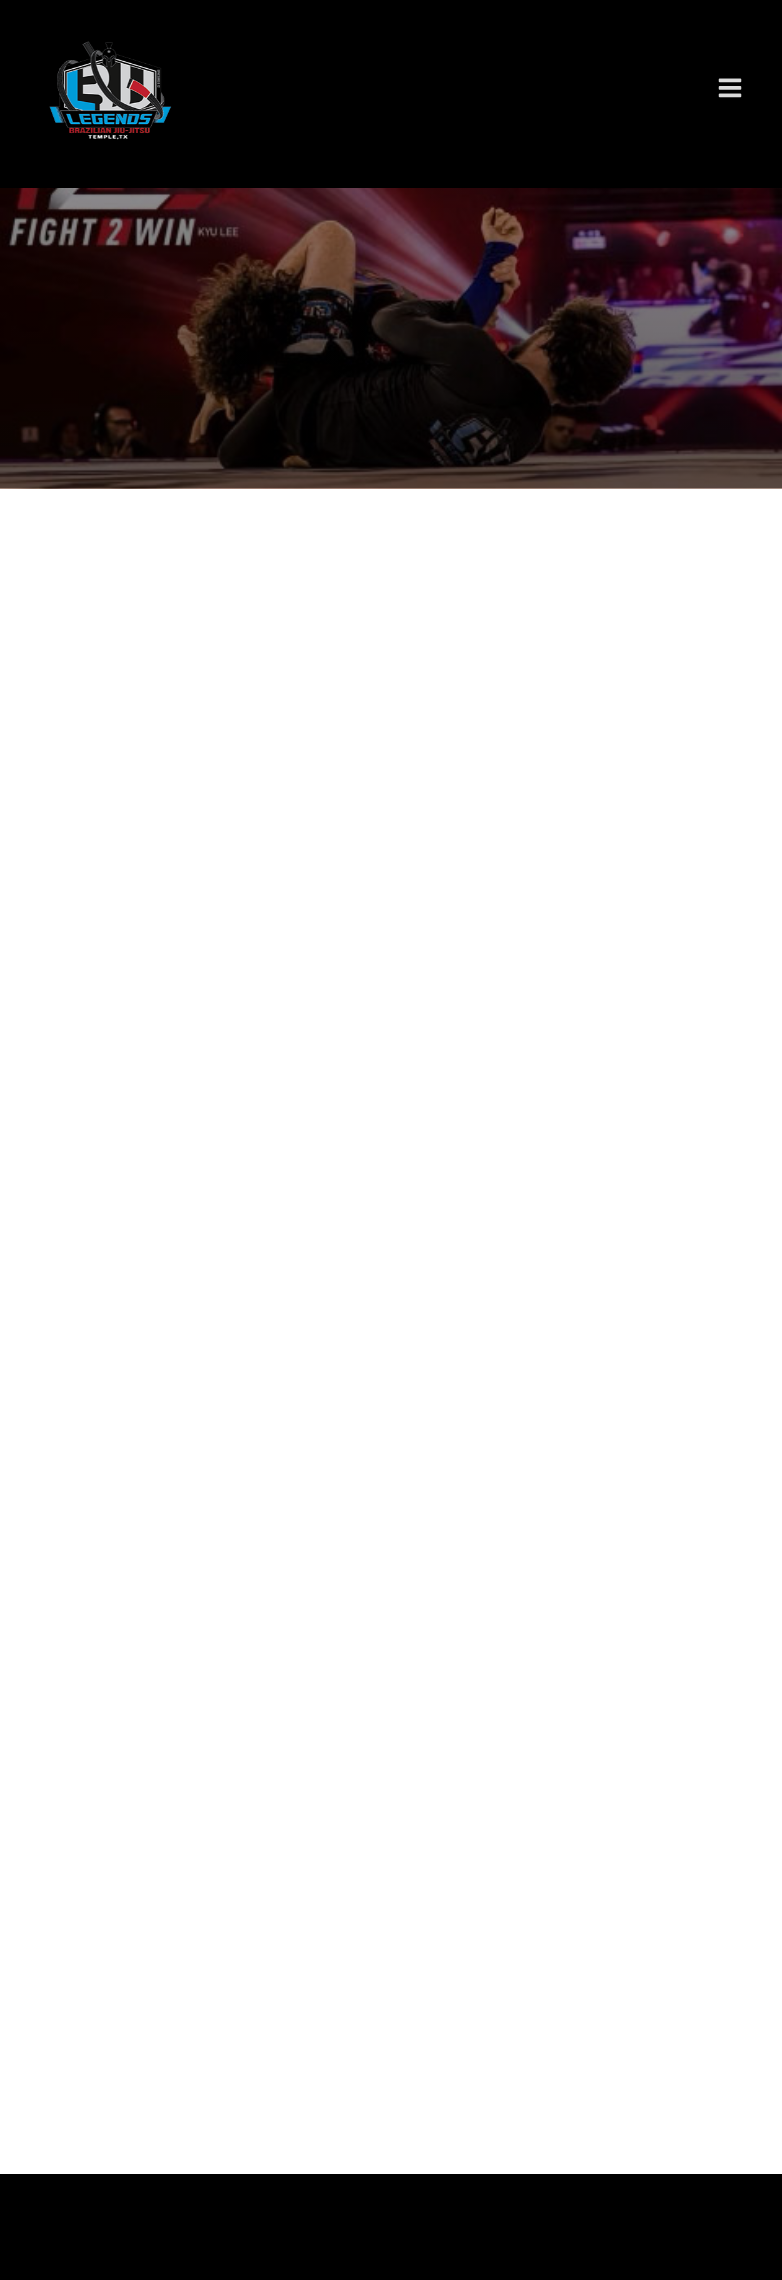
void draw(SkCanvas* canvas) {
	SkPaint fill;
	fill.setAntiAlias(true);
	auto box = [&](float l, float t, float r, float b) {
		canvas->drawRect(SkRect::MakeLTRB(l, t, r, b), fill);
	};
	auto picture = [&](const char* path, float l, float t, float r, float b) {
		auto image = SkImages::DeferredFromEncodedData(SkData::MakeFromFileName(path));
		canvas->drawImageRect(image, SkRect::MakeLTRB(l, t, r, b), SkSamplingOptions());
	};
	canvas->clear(0xFFFFFFFF);
	fill.setColor(0xFF000000);
	box(0, 0, 782, 188);
	picture("image0.png", 49, 41, 172, 140);
	picture("image1.png", 718, 78, 742, 98);
	picture("image2.png", 0, 188, 782, 489);
	box(0, 2174, 782, 2280);
}
